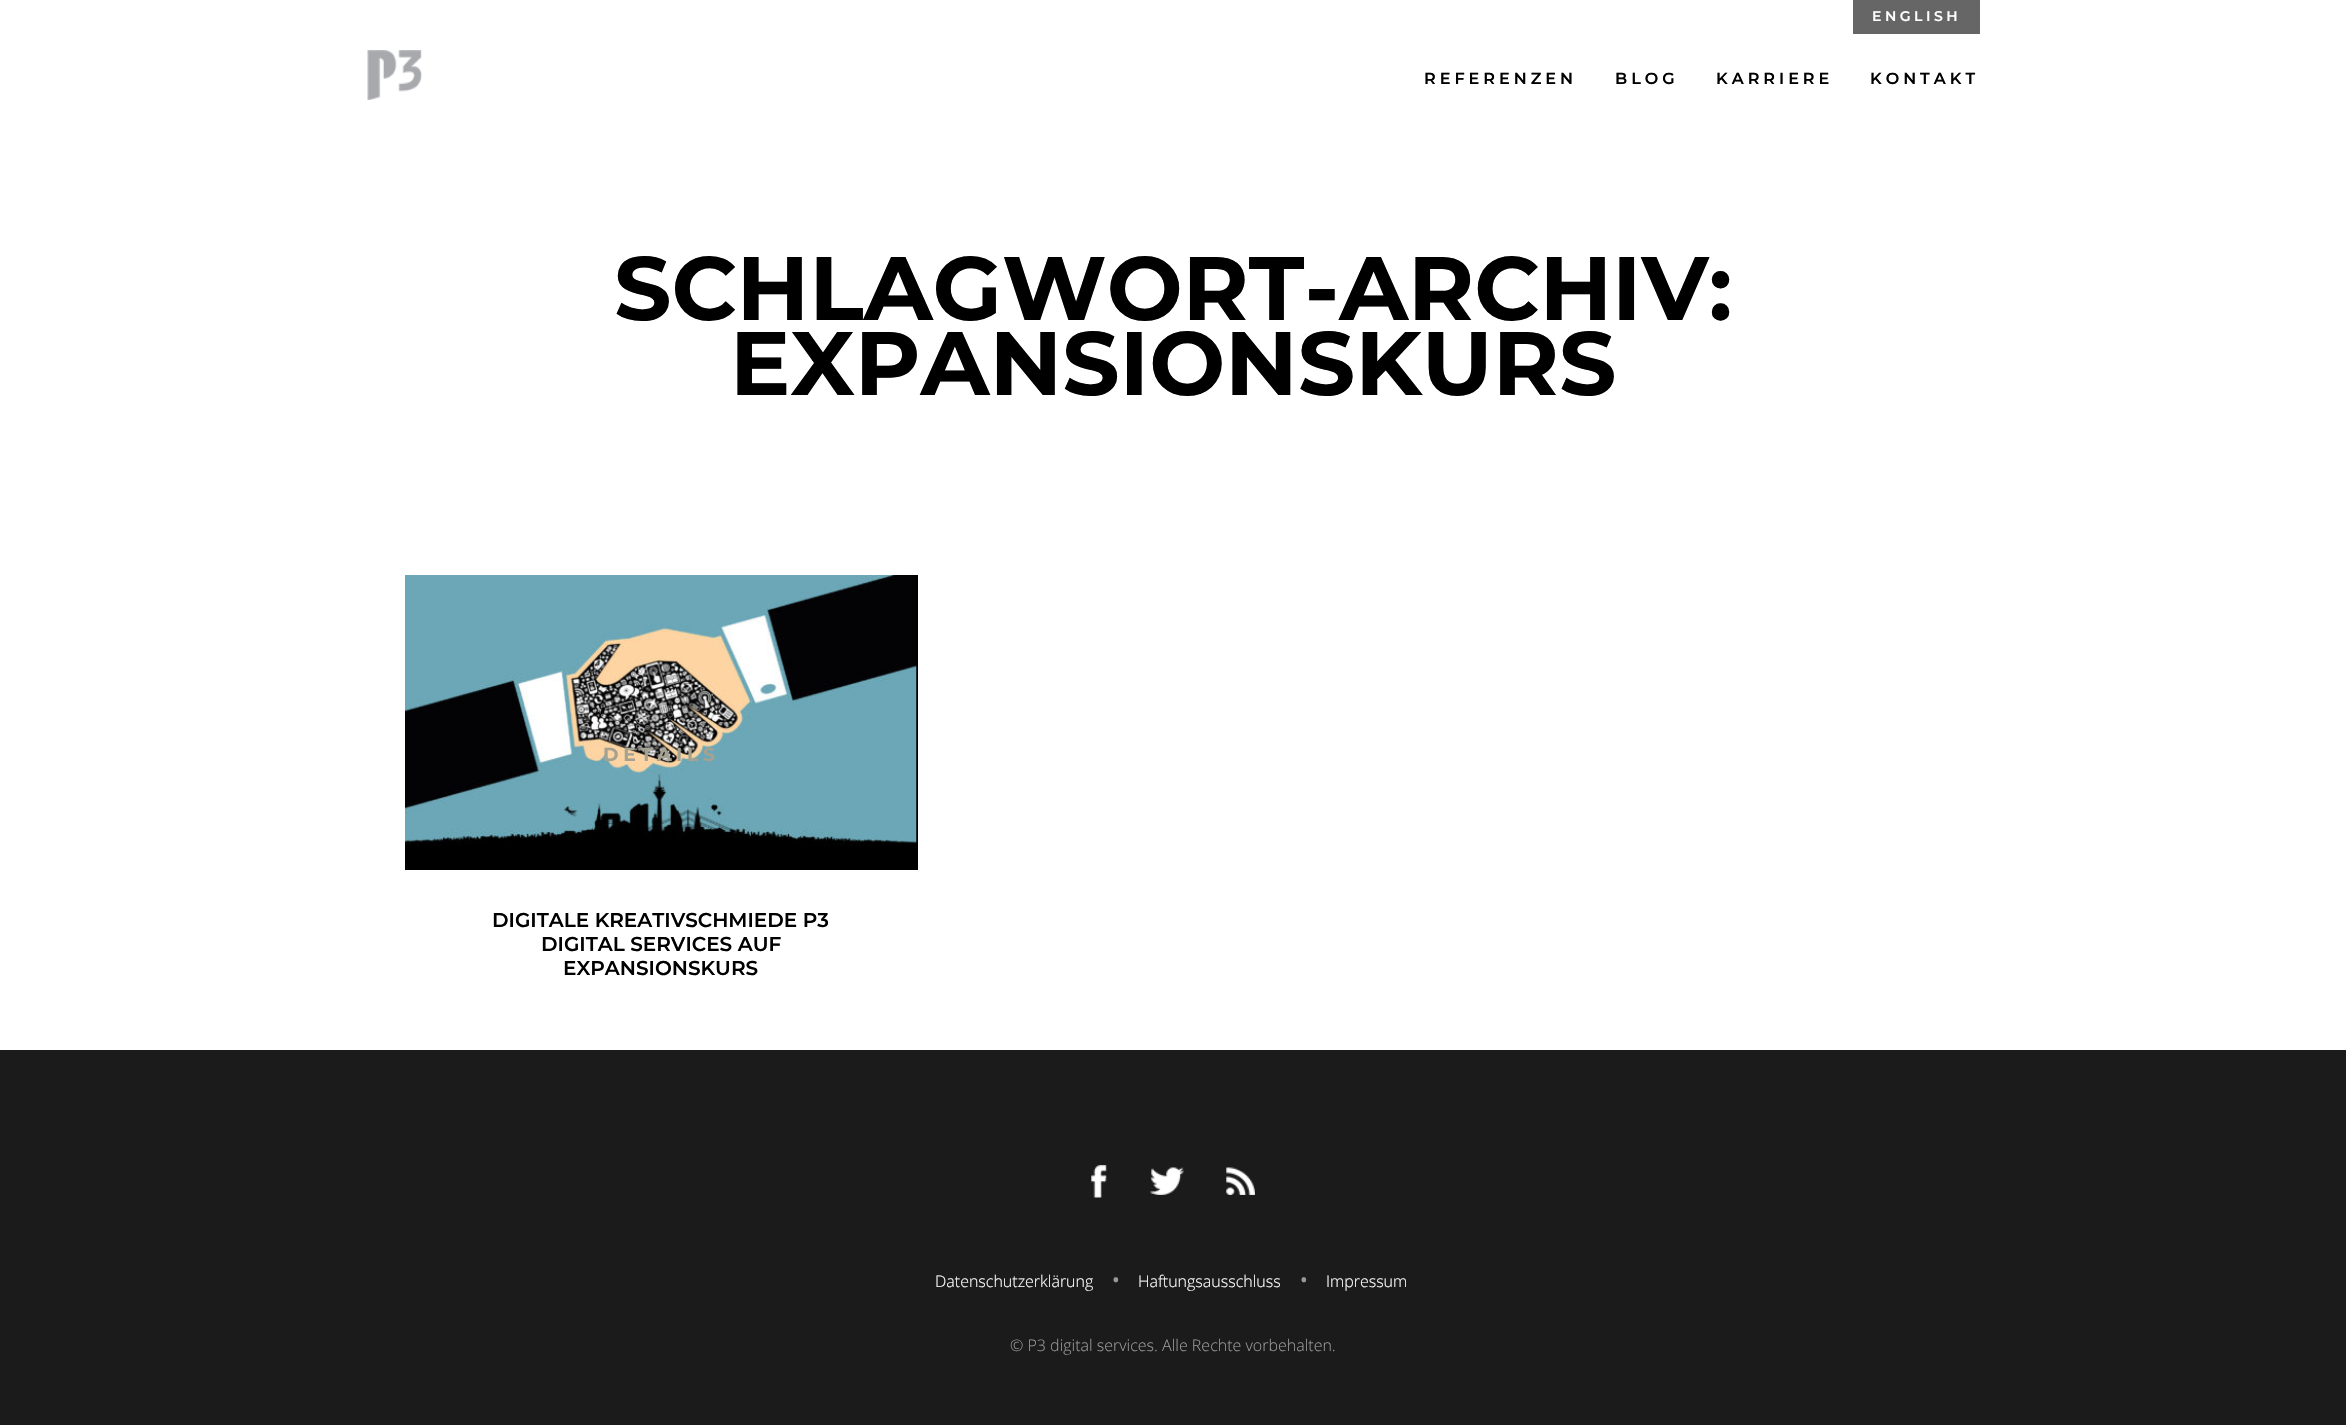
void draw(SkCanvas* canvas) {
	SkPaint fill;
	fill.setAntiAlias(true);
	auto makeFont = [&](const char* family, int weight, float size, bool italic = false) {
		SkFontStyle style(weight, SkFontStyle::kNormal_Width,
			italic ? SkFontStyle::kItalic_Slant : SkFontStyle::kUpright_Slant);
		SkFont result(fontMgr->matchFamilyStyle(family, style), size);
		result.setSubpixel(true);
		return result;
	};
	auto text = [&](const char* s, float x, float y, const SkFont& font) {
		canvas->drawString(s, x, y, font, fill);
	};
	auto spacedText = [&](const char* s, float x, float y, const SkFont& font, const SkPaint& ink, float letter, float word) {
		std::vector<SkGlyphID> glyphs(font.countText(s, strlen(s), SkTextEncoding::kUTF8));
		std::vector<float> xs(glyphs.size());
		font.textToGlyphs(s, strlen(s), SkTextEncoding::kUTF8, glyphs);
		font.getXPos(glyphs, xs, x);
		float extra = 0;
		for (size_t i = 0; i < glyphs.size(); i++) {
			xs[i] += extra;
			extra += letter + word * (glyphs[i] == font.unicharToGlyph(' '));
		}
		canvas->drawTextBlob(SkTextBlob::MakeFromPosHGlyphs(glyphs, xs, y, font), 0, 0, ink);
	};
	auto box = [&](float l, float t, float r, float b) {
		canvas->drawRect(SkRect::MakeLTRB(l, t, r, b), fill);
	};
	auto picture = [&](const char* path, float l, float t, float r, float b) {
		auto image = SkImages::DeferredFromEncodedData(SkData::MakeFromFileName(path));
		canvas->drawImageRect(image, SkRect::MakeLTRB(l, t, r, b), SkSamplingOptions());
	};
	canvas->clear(0xFFFFFFFF);
	fill.setColor(0xFF666666);
	box(1853, 0, 1980, 34);
	picture("image0.png", 367, 50, 422, 100);
	fill.setColor(0xFF000000);
	box(405, 575, 918, 870);
	picture("image1.png", 405, 575, 917, 846);
	fill.setColor(0xFF1B1B1B);
	box(0, 1050, 2346, 1425);
	picture("image2.png", 1091, 1165, 1107, 1198);
	picture("image3.png", 1150, 1167, 1184, 1195);
	picture("image4.png", 1226, 1167, 1255, 1195);
	auto font1 = makeFont("Montserrat", 600, 14);
	fill.setColor(0xFFFFFFFF);
	spacedText("ENGLISH", 1872, 21, font1, fill, 3.5f, 0);
	auto font2 = makeFont("Montserrat", 600, 16);
	fill.setColor(0xFF000000);
	spacedText("REFERENZEN", 1424, 84, font2, fill, 4, 0);
	spacedText("BLOG", 1615, 84, font2, fill, 4, 0);
	spacedText("KARRIERE", 1716, 84, font2, fill, 4, 0);
	spacedText("KONTAKT", 1870, 84, font2, fill, 4, 0);
	auto font3 = makeFont("Montserrat", 700, 90);
	text("SCHLAGWORT-ARCHIV:", 614, 320, font3);
	text("EXPANSIONSKURS", 730, 395, font3);
	auto font4 = makeFont("Montserrat", 700, 18.75f);
	fill.setColor(0xFFA5A291);
	spacedText("DETAILS", 603, 761, font4, fill, 4.75f, 0);
	auto font5 = makeFont("Montserrat", 600, 20);
	fill.setColor(0xFF000000);
	text("DIGITALE KREATIVSCHMIEDE P3", 492, 927, font5);
	text("DIGITAL SERVICES AUF", 541, 951, font5);
	text("EXPANSIONSKURS", 563, 975, font5);
	auto font6 = makeFont("Open Sans", 300, 16);
	fill.setColor(0xFFFFFFFF);
	text("Datenschutzerklärung", 935, 1287, font6);
	auto font7 = makeFont("Open Sans", 700, 19);
	fill.setColor(0xFF999999);
	text("•", 1112, 1287, font7);
	fill.setColor(0xFFFFFFFF);
	text("Haftungsausschluss", 1138, 1287, font6);
	fill.setColor(0xFF999999);
	text("•", 1300, 1287, font7);
	fill.setColor(0xFFFFFFFF);
	text("Impressum", 1326, 1287, font6);
	fill.setColor(0xFF999999);
	text("© P3 digital services. Alle Rechte vorbehalten.", 1010, 1351, font6);
}
